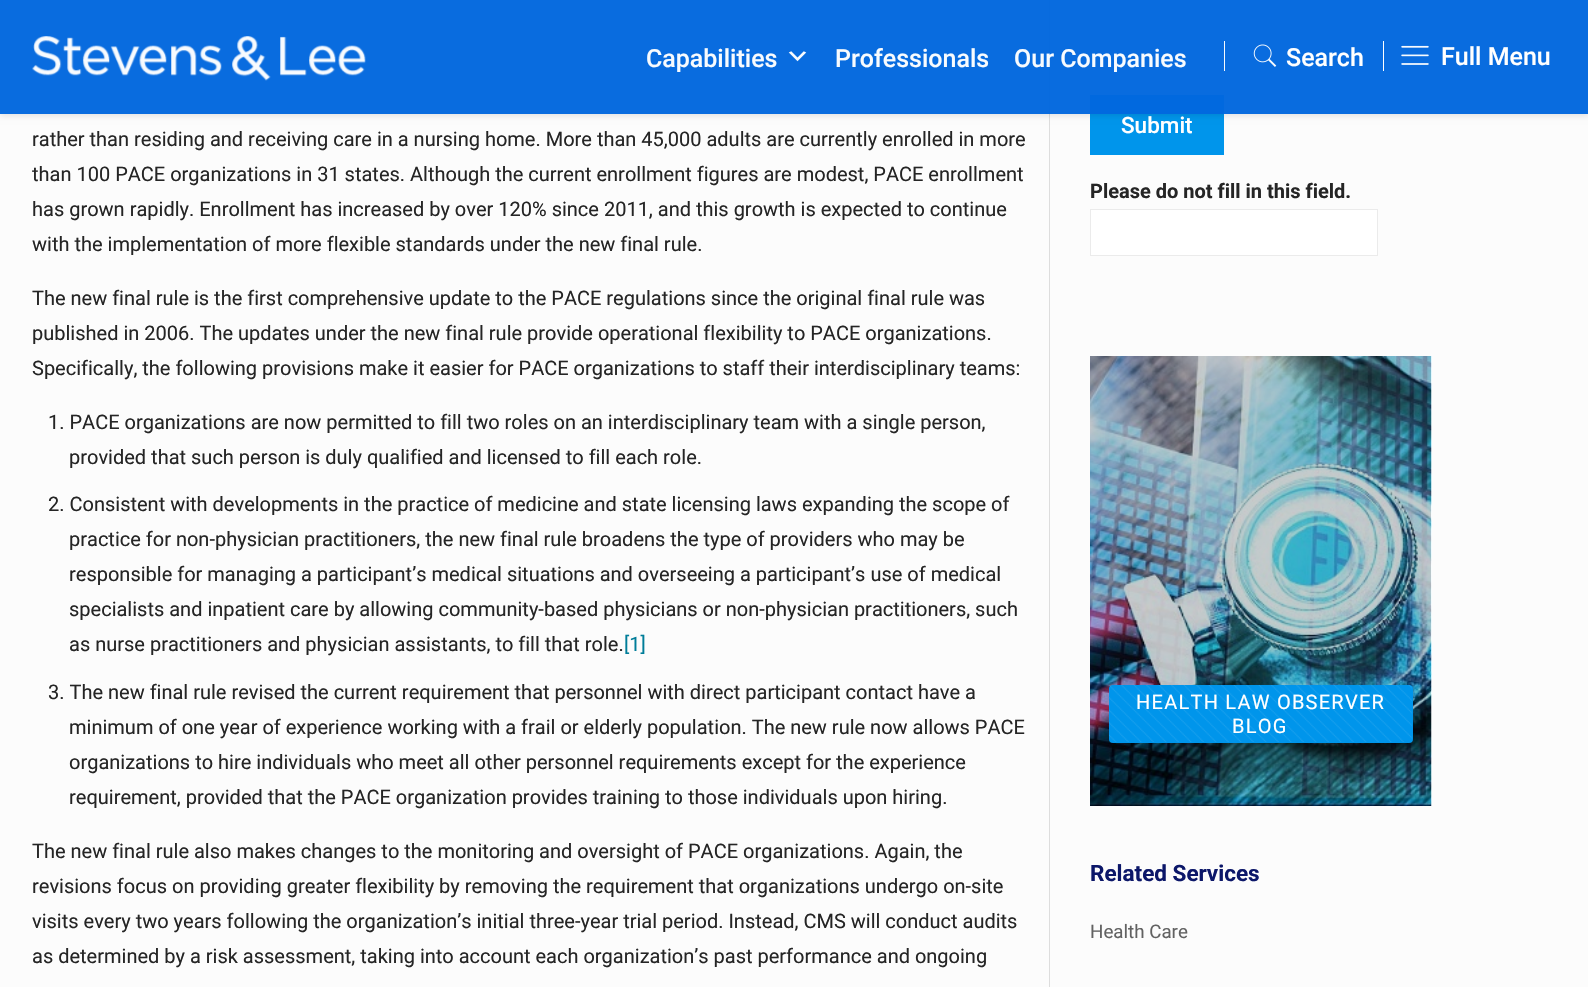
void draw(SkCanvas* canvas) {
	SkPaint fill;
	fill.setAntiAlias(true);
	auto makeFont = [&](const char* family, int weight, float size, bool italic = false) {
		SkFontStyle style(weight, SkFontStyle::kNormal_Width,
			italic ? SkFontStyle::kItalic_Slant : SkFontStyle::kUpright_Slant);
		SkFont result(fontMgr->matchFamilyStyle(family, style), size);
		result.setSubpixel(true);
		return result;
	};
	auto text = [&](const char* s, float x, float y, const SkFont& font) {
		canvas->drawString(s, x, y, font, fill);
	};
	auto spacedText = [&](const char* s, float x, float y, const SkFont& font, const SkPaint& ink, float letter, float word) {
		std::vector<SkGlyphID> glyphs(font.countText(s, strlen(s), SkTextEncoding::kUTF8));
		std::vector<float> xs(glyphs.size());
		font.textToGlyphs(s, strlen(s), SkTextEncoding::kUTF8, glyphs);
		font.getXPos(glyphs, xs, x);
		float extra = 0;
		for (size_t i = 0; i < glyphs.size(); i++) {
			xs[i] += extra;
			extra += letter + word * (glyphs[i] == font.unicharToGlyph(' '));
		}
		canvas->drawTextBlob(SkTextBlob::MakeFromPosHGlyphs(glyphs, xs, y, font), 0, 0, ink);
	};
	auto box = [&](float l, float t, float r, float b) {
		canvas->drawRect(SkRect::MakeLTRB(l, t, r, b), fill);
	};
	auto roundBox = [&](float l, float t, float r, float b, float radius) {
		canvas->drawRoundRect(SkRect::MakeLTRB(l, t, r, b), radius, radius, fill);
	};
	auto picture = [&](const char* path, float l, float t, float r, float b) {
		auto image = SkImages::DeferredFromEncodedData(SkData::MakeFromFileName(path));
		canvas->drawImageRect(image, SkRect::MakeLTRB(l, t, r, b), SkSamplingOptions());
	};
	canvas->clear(0xFFFCFCFC);
	fill.setColor(0xFFDDDDDD);
	box(1049, 0, 1050, 987);
	fill.setColor(0xFFFFFFFF);
	canvas->drawRect(SkRect::MakeLTRB(1090.5f, 23.5f, 1377.5f, 69.5f), fill);
	fill.setStyle(SkPaint::kStroke_Style);
	fill.setStrokeWidth(1);
	fill.setColor(0xFFEBEBEB);
	canvas->drawRect(SkRect::MakeLTRB(1090.5f, 23.5f, 1377.5f, 69.5f), fill);
	fill.setStyle(SkPaint::kFill_Style);
	fill.setColor(0xFF0095EB);
	box(1090, 95, 1224, 155);
	canvas->save();
	canvas->clipPath(SkPathBuilder(SkPathFillType::kEvenOdd).moveTo(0, 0).lineTo(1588, 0).lineTo(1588, 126).lineTo(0, 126).close().moveTo(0, 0).lineTo(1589, 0).lineTo(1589, 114).lineTo(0, 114).close().detach(), true);
	fill.setColor(0x1A000000);
	fill.setMaskFilter(SkMaskFilter::MakeBlur(kNormal_SkBlurStyle, 3));
	canvas->drawRect(SkRect::MakeLTRB(0, 3, 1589, 116), fill);
	fill.setMaskFilter(nullptr);
	canvas->restore();
	fill.setColor(0xF70167DE);
	box(0, 0, 1588, 114);
	picture("image0.png", 32, 36, 366, 81);
	picture("image1.png", 788, 51, 807, 62);
	fill.setColor(0xFFFFFFFF);
	box(1383, 41, 1384, 71);
	fill.setColor(0xF7FFFFFF);
	box(1224, 41, 1225, 71);
	picture("image2.png", 1253, 44, 1277, 67);
	picture("image3.png", 1401, 45, 1429, 65);
	fill.setColor(0xFFFFFFFF);
	canvas->drawRect(SkRect::MakeLTRB(1090.5f, 209.5f, 1377.5f, 255.5f), fill);
	fill.setStyle(SkPaint::kStroke_Style);
	fill.setColor(0xFFEBEBEB);
	canvas->drawRect(SkRect::MakeLTRB(1090.5f, 209.5f, 1377.5f, 255.5f), fill);
	picture("image4.png", 1090, 356, 1432, 806);
	fill.setStyle(SkPaint::kFill_Style);
	fill.setColor(0xFF0095EB);
	roundBox(1109, 685, 1413, 743, 4);
	picture("image5.png", 1109, 685, 1412, 742);
	auto font1 = makeFont("Roboto", 500, 25);
	fill.setColor(0xFFF8FBFE);
	text("Capabilities", 646, 67, font1);
	text("Professionals", 835, 67, font1);
	text("Our Companies", 1014, 67, font1);
	fill.setColor(0xFFFFFFFF);
	text("Search", 1286, 66, font1);
	text("Full Menu", 1441, 65, font1);
	auto font2 = makeFont("Roboto", 400, 20);
	fill.setColor(0xFF252525);
	text("rather than residing and receiving care in a nursing home. More than 45,000 adults are currently enrolled in more", 32, 146, font2);
	text("than 100 PACE organizations in 31 states. Although the current enrollment figures are modest, PACE enrollment", 32, 181, font2);
	text("has grown rapidly. Enrollment has increased by over 120% since 2011, and this growth is expected to continue", 32, 216, font2);
	text("with the implementation of more flexible standards under the new final rule.", 32, 251, font2);
	text("The new final rule is the first comprehensive update to the PACE regulations since the original final rule was", 32, 305, font2);
	text("published in 2006. The updates under the new final rule provide operational flexibility to PACE organizations.", 32, 340, font2);
	text("Specifically, the following provisions make it easier for PACE organizations to staff their interdisciplinary teams:", 32, 375, font2);
	text("1. PACE organizations are now permitted to fill two roles on an interdisciplinary team with a single person,", 48, 429, font2);
	text("provided that such person is duly qualified and licensed to fill each role.", 69, 464, font2);
	text("2. Consistent with developments in the practice of medicine and state licensing laws expanding the scope of", 48, 511, font2);
	text("practice for non-physician practitioners, the new final rule broadens the type of providers who may be", 69, 546, font2);
	text("responsible for managing a participant’s medical situations and overseeing a participant’s use of medical", 69, 581, font2);
	text("specialists and inpatient care by allowing community-based physicians or non-physician practitioners, such", 69, 616, font2);
	text("as nurse practitioners and physician assistants, to fill that role.", 69, 651, font2);
	fill.setColor(0xFF007D99);
	text("[1]", 624, 651, font2);
	fill.setColor(0xFF252525);
	text("3. The new final rule revised the current requirement that personnel with direct participant contact have a", 48, 699, font2);
	text("minimum of one year of experience working with a frail or elderly population. The new rule now allows PACE", 69, 734, font2);
	text("organizations to hire individuals who meet all other personnel requirements except for the experience", 69, 769, font2);
	text("requirement, provided that the PACE organization provides training to those individuals upon hiring.", 69, 804, font2);
	text("The new final rule also makes changes to the monitoring and oversight of PACE organizations. Again, the", 32, 858, font2);
	text("revisions focus on providing greater flexibility by removing the requirement that organizations undergo on-site", 32, 893, font2);
	text("visits every two years following the organization’s initial three-year trial period. Instead, CMS will conduct audits", 32, 928, font2);
	text("as determined by a risk assessment, taking into account each organization’s past performance and ongoing", 32, 963, font2);
	auto font3 = makeFont("Roboto", 500, 22.5f);
	fill.setColor(0xFFFFFFFF);
	text("Submit", 1121, 133, font3);
	auto font4 = makeFont("Roboto", 700, 20);
	fill.setColor(0xFF252525);
	text("Please do not fill in this field.", 1090, 198, font4);
	fill.setColor(0xFFFFFFFF);
	spacedText("HEALTH LAW OBSERVER", 1136, 709, font2, fill, 1.25f, 0);
	spacedText("BLOG", 1232, 733, font2, fill, 1.25f, 0);
	auto font5 = makeFont("Roboto", 700, 22.5f);
	fill.setColor(0xFF0C1769);
	text("Related Services", 1090, 881, font5);
	auto font6 = makeFont("Roboto", 400, 18.75f);
	fill.setColor(0xFF626262);
	text("Health Care", 1090, 938, font6);
}
